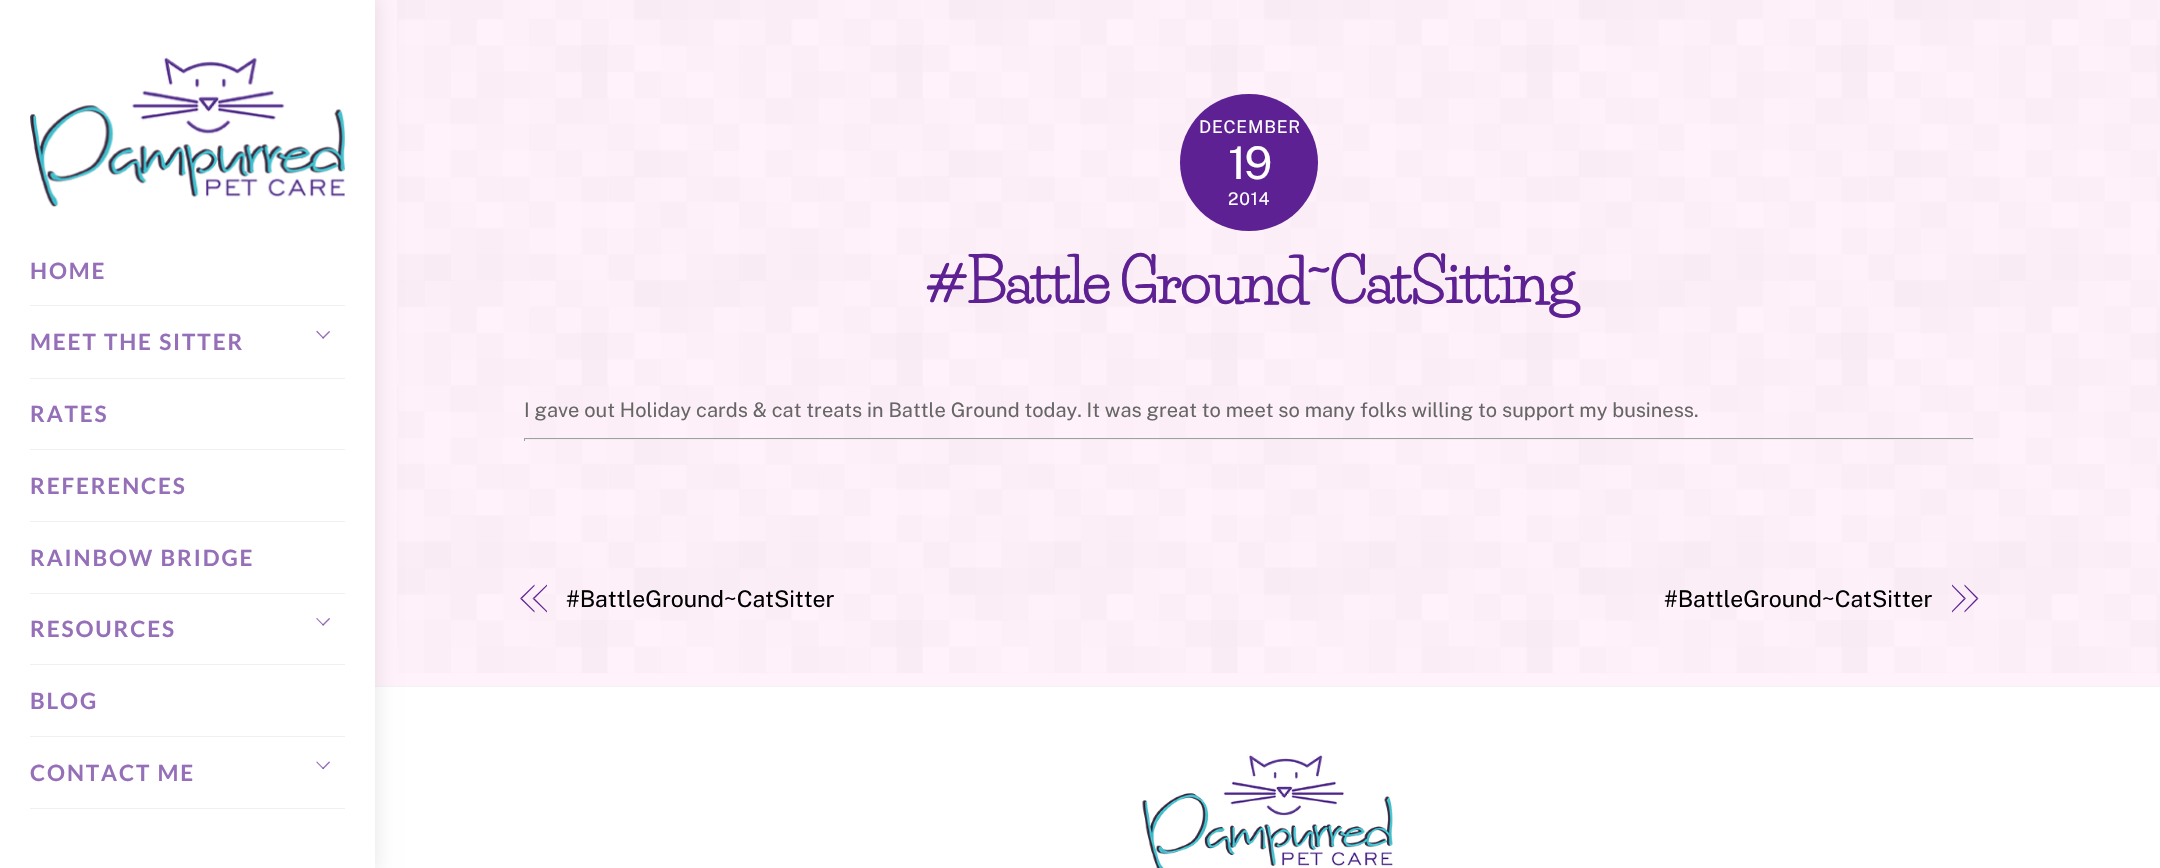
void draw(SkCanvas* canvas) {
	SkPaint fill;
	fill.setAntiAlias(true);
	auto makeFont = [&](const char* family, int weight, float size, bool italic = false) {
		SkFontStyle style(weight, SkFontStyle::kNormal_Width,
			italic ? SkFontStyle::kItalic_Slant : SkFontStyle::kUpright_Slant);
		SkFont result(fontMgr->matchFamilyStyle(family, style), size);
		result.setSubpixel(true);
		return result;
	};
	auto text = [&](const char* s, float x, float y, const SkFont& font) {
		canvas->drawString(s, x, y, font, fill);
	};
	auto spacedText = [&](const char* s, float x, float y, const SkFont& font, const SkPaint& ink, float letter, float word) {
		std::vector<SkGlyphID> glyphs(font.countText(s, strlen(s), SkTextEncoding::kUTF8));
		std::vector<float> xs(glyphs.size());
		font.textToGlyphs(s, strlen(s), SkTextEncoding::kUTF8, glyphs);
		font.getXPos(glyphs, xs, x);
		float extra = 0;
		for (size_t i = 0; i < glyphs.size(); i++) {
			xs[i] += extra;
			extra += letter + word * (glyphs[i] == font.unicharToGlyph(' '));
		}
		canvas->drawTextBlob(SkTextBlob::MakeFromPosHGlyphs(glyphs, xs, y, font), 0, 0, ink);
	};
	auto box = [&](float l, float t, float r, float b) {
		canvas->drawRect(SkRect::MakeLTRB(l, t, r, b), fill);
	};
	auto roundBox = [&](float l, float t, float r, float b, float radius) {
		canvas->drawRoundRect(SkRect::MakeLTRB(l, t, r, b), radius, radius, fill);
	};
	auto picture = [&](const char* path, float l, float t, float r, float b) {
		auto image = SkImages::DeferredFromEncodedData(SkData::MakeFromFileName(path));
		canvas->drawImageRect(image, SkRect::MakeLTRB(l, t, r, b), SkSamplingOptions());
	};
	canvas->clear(0xFFFFF2FA);
	picture("image0.png", 397, 0, 2160, 673);
	fill.setColor(0xFFFFFFFF);
	box(375, 687, 2160, 868);
	fill.setColor(0xFFF2F2F2);
	box(375, 686, 2160, 687);
	fill.setColor(0x1A000000);
	fill.setMaskFilter(SkMaskFilter::MakeBlur(kNormal_SkBlurStyle, 10));
	canvas->drawRect(SkRect::MakeLTRB(-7, -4, 375, 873), fill);
	fill.setMaskFilter(nullptr);
	fill.setColor(0xFFFFFFFF);
	box(0, 0, 375, 868);
	picture("image1.png", 30, 57, 345, 207);
	fill.setColor(0xFFF0F0F0);
	box(30, 305, 345, 306);
	box(30, 378, 345, 379);
	fill.setColor(0xFF966FB9);
	canvas->drawPath(SkPathBuilder().moveTo(317.5f, 331).lineTo(323.5f, 337.5f).cubicTo(324, 338, 323.5f, 338.5f, 323, 338.5f).lineTo(316.5f, 332).cubicTo(316, 331.5f, 317, 330.5f, 317.5f, 331).close().detach(), fill);
	fill.setColor(0xA65D2193);
	canvas->drawPath(SkPathBuilder().moveTo(322.5f, 337.5f).lineTo(329, 331).cubicTo(329.5f, 331, 330, 331.5f, 330, 332).lineTo(323.5f, 338.5f).cubicTo(323, 339, 322, 338, 322.5f, 337.5f).close().detach(), fill);
	fill.setColor(0xFFF0F0F0);
	box(30, 449, 345, 450);
	box(30, 521, 345, 522);
	box(30, 593, 345, 594);
	box(30, 664, 345, 665);
	fill.setColor(0xFF966FB9);
	canvas->drawPath(SkPathBuilder().moveTo(317.5f, 618.5f).lineTo(323.5f, 624.5f).cubicTo(324, 625, 323.5f, 625.5f, 323, 625.5f).lineTo(316.5f, 619).cubicTo(316, 618.5f, 317, 617.5f, 317.5f, 618.5f).close().detach(), fill);
	fill.setColor(0xA65D2193);
	canvas->drawPath(SkPathBuilder().moveTo(322.5f, 624.5f).lineTo(329, 618).cubicTo(329.5f, 618, 330, 618.5f, 330, 619).lineTo(323.5f, 625.5f).cubicTo(323, 626, 322, 625, 322.5f, 624.5f).close().detach(), fill);
	fill.setColor(0xFFF0F0F0);
	box(30, 736, 345, 737);
	box(30, 808, 345, 809);
	fill.setColor(0xFF966FB9);
	canvas->drawPath(SkPathBuilder().moveTo(317.5f, 762).lineTo(323.5f, 768).cubicTo(324, 768.5f, 323.5f, 769, 323, 769).lineTo(316.5f, 762.5f).cubicTo(316, 762, 317, 761, 317.5f, 762).close().detach(), fill);
	fill.setColor(0xA65D2193);
	canvas->drawPath(SkPathBuilder().moveTo(322.5f, 768).lineTo(329, 761.5f).cubicTo(329.5f, 761.5f, 330, 762, 330, 762.5f).lineTo(323.5f, 769).cubicTo(323, 769.5f, 322, 768.5f, 322.5f, 768).close().detach(), fill);
	fill.setColor(0xFF5D2193);
	roundBox(1180, 94, 1318, 231, 68.5f);
	fill.setColor(0xFF9F9F9F);
	box(524, 438, 1974, 439);
	fill.setColor(0xFFEEEEEE);
	box(1973, 438, 1974, 441);
	box(524, 439, 1974, 440);
	fill.setColor(0xFF9F9F9F);
	box(524, 438, 525, 441);
	fill.setColor(0xFF5D2193);
	canvas->drawPath(SkPathBuilder().moveTo(520, 598.5f).lineTo(534.5f, 584.5f).lineTo(534.5f, 586).lineTo(522, 598.5f).close().detach(), fill);
	canvas->drawPath(SkPathBuilder().moveTo(534.5f, 612.5f).lineTo(520, 598.5f).lineTo(522, 598.5f).lineTo(534.5f, 611).close().detach(), fill);
	canvas->drawPath(SkPathBuilder().moveTo(532.5f, 598.5f).lineTo(547, 584.5f).lineTo(547, 586).lineTo(534.5f, 598.5f).close().detach(), fill);
	canvas->drawPath(SkPathBuilder().moveTo(547, 612.5f).lineTo(532.5f, 598.5f).lineTo(534.5f, 598.5f).lineTo(547, 611).close().detach(), fill);
	canvas->drawPath(SkPathBuilder().moveTo(1964.5f, 584.5f).lineTo(1978.5f, 598.5f).lineTo(1976.5f, 598.5f).lineTo(1964.5f, 586).close().detach(), fill);
	canvas->drawPath(SkPathBuilder().moveTo(1978.5f, 598.5f).lineTo(1964.5f, 612.5f).lineTo(1964.5f, 611).lineTo(1976.5f, 598.5f).close().detach(), fill);
	canvas->drawPath(SkPathBuilder().moveTo(1952, 584.5f).lineTo(1966, 598.5f).lineTo(1964, 598.5f).lineTo(1952, 586).close().detach(), fill);
	canvas->drawPath(SkPathBuilder().moveTo(1966, 598.5f).lineTo(1952, 612.5f).lineTo(1952, 611).lineTo(1964, 598.5f).close().detach(), fill);
	picture("image2.png", 1142, 755, 1393, 868);
	auto font1 = makeFont("Lato", 700, 22.5f);
	fill.setColor(0xFF966FB9);
	spacedText("HOME", 30, 279, font1, fill, 1.9f, 0);
	spacedText("MEET THE SITTER", 30, 350, font1, fill, 1.9f, 0);
	spacedText("RATES", 30, 422, font1, fill, 1.9f, 0);
	spacedText("REFERENCES", 30, 494, font1, fill, 1.9f, 0);
	spacedText("RAINBOW BRIDGE", 30, 566, font1, fill, 1.9f, 0);
	spacedText("RESOURCES", 30, 637, font1, fill, 1.9f, 0);
	spacedText("BLOG", 30, 709, font1, fill, 1.9f, 0);
	spacedText("CONTACT ME", 30, 781, font1, fill, 1.9f, 0);
	auto font2 = makeFont("Public Sans", 400, 17.5f);
	fill.setColor(0xFFFFFFFF);
	spacedText("DECEMBER", 1199, 133, font2, fill, 0.75f, 0);
	auto font3 = makeFont("Public Sans", 400, 45);
	spacedText("19", 1228, 179, font3, fill, -2, 0);
	spacedText("2014", 1228, 205, font2, fill, 0.75f, 0);
	auto font4 = makeFont("Life Savers", 700, 60);
	fill.setColor(0xFF5D2193);
	spacedText("#Battle Ground~CatSitting", 925, 303, font4, fill, -2.4f, 0);
	auto font5 = makeFont("Public Sans", 400, 20);
	fill.setColor(0xFF666666);
	text("I gave out Holiday cards & cat treats in Battle Ground today. It was great to meet so many folks willing to support my business.", 524, 417, font5);
	auto font6 = makeFont("Public Sans", 400, 23);
	fill.setColor(0xFF000000);
	spacedText("#BattleGround~CatSitter", 566, 607, font6, fill, -0.1f, 0);
	spacedText("#BattleGround~CatSitter", 1664, 607, font6, fill, -0.1f, 0);
}
